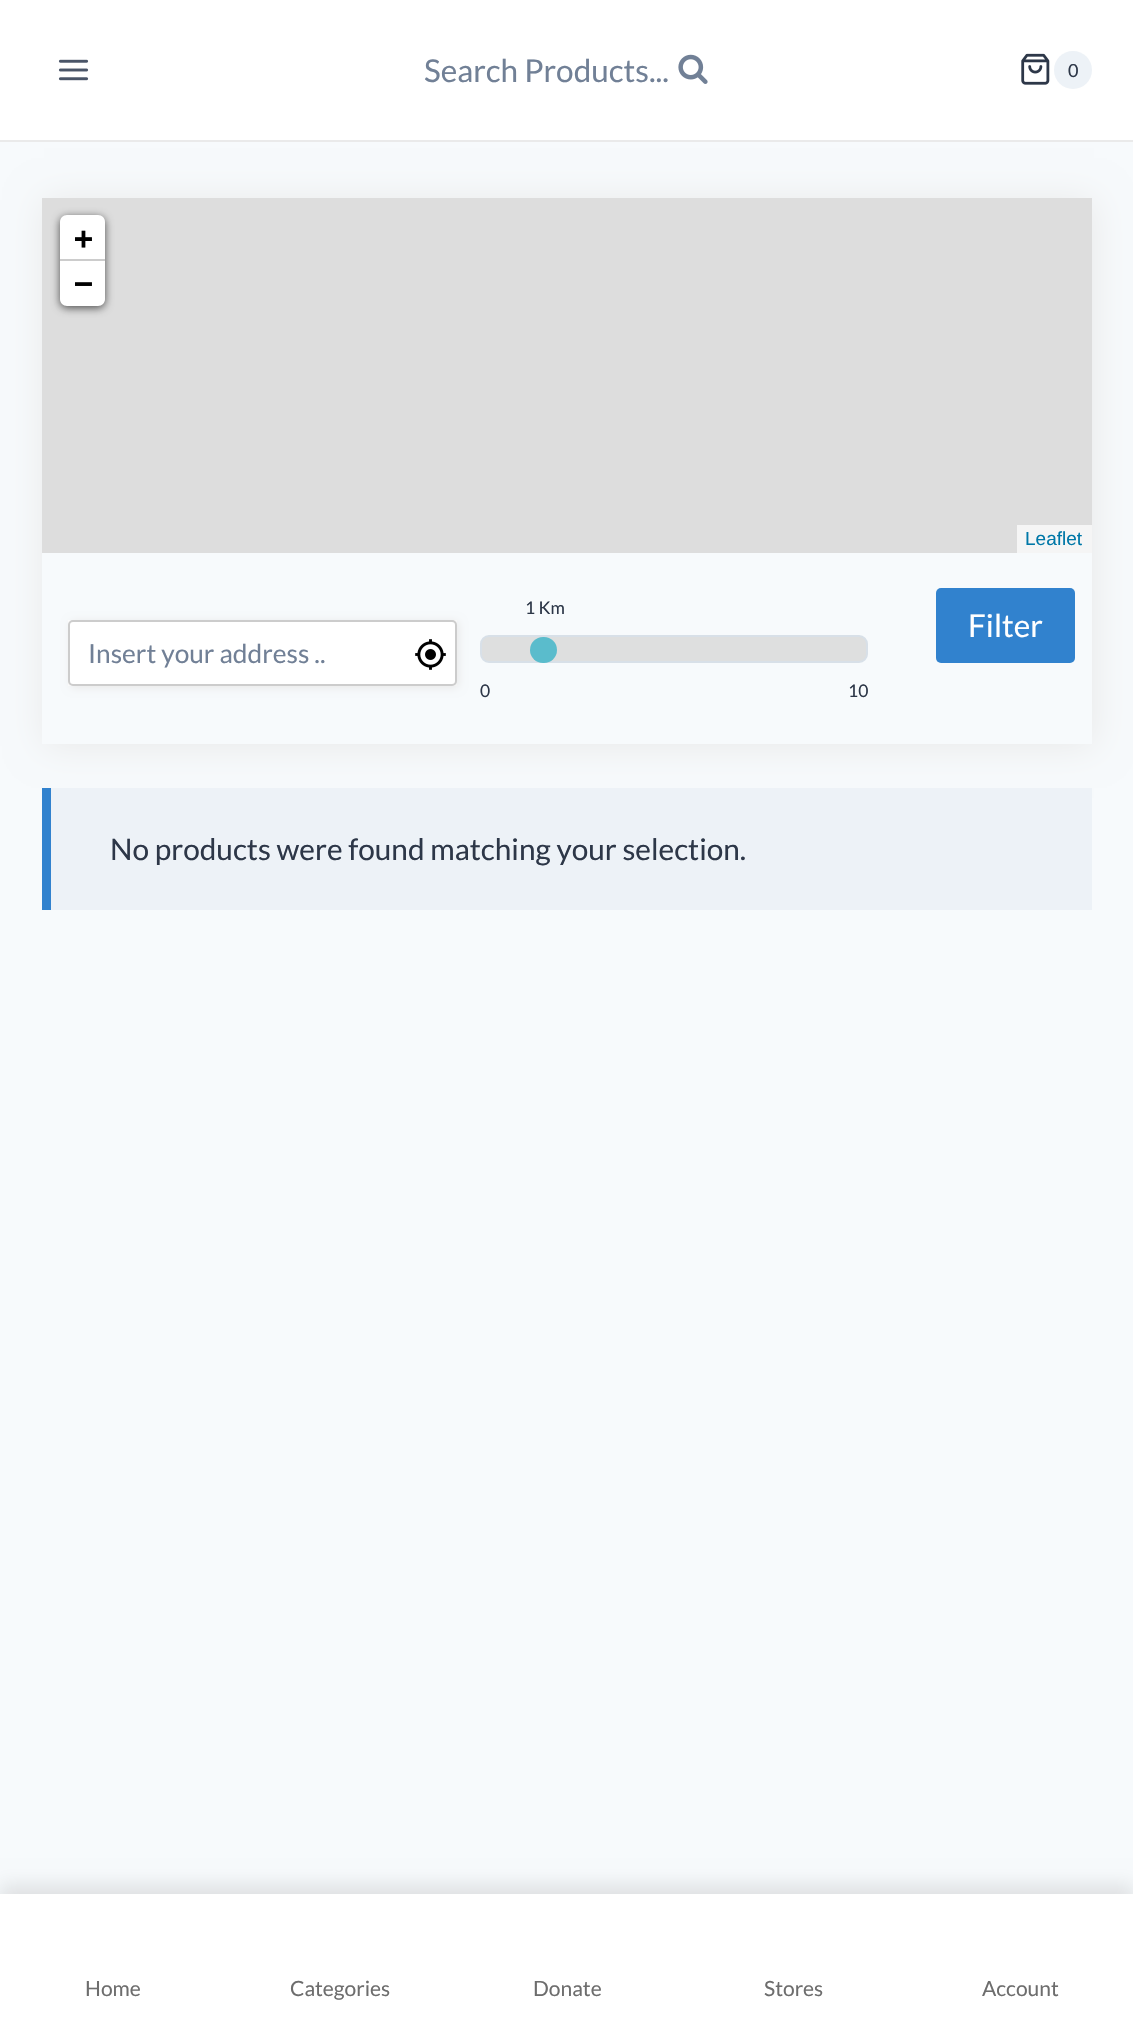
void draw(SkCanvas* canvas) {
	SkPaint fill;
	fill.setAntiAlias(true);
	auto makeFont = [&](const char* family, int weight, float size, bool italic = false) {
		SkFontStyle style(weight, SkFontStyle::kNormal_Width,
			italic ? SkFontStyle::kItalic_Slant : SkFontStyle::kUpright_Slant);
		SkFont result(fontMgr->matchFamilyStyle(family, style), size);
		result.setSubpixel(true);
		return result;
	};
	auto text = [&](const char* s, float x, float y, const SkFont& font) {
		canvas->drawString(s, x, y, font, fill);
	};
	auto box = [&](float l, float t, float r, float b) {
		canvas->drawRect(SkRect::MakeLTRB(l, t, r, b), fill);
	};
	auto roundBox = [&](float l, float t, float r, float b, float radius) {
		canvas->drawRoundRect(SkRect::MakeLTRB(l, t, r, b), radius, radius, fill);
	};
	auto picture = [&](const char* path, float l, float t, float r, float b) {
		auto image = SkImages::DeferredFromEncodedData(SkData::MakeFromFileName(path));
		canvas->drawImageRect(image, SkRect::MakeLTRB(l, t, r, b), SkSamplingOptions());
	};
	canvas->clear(0xFFF7FAFC);
	fill.setColor(0xFFFFFFFF);
	box(0, 0, 1133, 140);
	fill.setColor(0xFFEAEAEA);
	box(0, 140, 1133, 142);
	picture("image0.png", 58, 59, 89, 81);
	picture("image1.png", 678, 54, 708, 84);
	picture("image2.png", 1021, 53, 1050, 85);
	fill.setColor(0xFFEDF2F7);
	canvas->drawCircle(1073, 70, 19, fill);
	canvas->save();
	canvas->clipPath(SkPathBuilder(SkPathFillType::kEvenOdd).moveTo(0, 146).lineTo(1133, 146).lineTo(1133, 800).lineTo(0, 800).close().moveTo(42, 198).lineTo(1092, 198).lineTo(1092, 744).lineTo(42, 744).close().detach(), true);
	fill.setColor(0xFFE9E9E9);
	fill.setMaskFilter(SkMaskFilter::MakeBlur(kNormal_SkBlurStyle, 17.5f));
	canvas->drawRect(SkRect::MakeLTRB(44, 200, 1094, 746), fill);
	fill.setMaskFilter(nullptr);
	canvas->restore();
	fill.setColor(0xFFDDDDDD);
	box(42, 198, 1092, 553);
	fill.setColor(0xA6000000);
	fill.setMaskFilter(SkMaskFilter::MakeBlur(kNormal_SkBlurStyle, 4.5f));
	canvas->drawRoundRect(SkRect::MakeLTRB(60, 217, 105, 308), 7, 7, fill);
	fill.setMaskFilter(nullptr);
	fill.setColor(0xFFFFFFFF);
	canvas->drawPath(SkPathBuilder().moveTo(67, 215).lineTo(98, 215).cubicTo(102, 215, 105, 218, 105, 222).lineTo(105, 261).lineTo(60, 261).lineTo(60, 222).cubicTo(60, 218, 63, 215, 67, 215).close().detach(), fill);
	fill.setColor(0xFFCCCCCC);
	box(60, 259, 105, 261);
	fill.setColor(0xFFFFFFFF);
	canvas->drawPath(SkPathBuilder().moveTo(60, 261).lineTo(105, 261).lineTo(105, 299).cubicTo(105, 303, 102, 306, 98, 306).lineTo(67, 306).cubicTo(63, 306, 60, 303, 60, 299).close().detach(), fill);
	fill.setColor(0xFFF5F5F5);
	box(1017, 525, 1092, 553);
	fill.setColor(0xFFDEDFDF);
	canvas->drawRoundRect(SkRect::MakeLTRB(481, 636, 867, 662), 8, 8, fill);
	fill.setStyle(SkPaint::kStroke_Style);
	fill.setStrokeWidth(2);
	fill.setColor(0xFFD8E0E8);
	canvas->drawRoundRect(SkRect::MakeLTRB(481, 636, 867, 662), 8, 8, fill);
	fill.setStyle(SkPaint::kFill_Style);
	fill.setColor(0xFF5ABCCC);
	roundBox(530, 637, 557, 663, 13);
	fill.setColor(0xFF3182CE);
	roundBox(936, 588, 1075, 663, 5);
	fill.setColor(0xFFFFFFFF);
	box(68, 620, 457, 686);
	fill.setColor(0xFFE9E9E9);
	fill.setMaskFilter(SkMaskFilter::MakeBlur(kNormal_SkBlurStyle, 4.5f));
	canvas->drawRoundRect(SkRect::MakeLTRB(70, 621, 459, 688), 5, 5, fill);
	fill.setMaskFilter(nullptr);
	fill.setColor(0xFFFFFFFF);
	canvas->drawRoundRect(SkRect::MakeLTRB(69, 621, 456, 685), 4, 4, fill);
	fill.setStyle(SkPaint::kStroke_Style);
	fill.setColor(0xFFCCCCCC);
	canvas->drawRoundRect(SkRect::MakeLTRB(69, 621, 456, 685), 4, 4, fill);
	picture("image3.png", 415, 639, 446, 670);
	fill.setStyle(SkPaint::kFill_Style);
	fill.setColor(0xFFEDF2F7);
	box(51, 788, 1092, 910);
	fill.setColor(0xFF3182CE);
	box(42, 788, 51, 910);
	fill.setColor(0x1A000000);
	fill.setMaskFilter(SkMaskFilter::MakeBlur(kNormal_SkBlurStyle, 9));
	canvas->drawRect(SkRect::MakeLTRB(0, 1885, 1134, 2025), fill);
	fill.setMaskFilter(nullptr);
	fill.setColor(0xFFFFFFFF);
	box(0, 1894, 1133, 2032);
	auto font1 = makeFont("Lato", 400, 31.5f);
	fill.setColor(0xFF718096);
	text("Search Products...", 424, 82, font1);
	auto font2 = makeFont("Lato", 400, 18);
	fill.setColor(0xFF2D3748);
	text("0", 1068, 77, font2);
	auto font3 = makeFont("DejaVu Sans Mono", 700, 31.5f);
	fill.setColor(0xFF000000);
	text("+", 74, 249, font3);
	text("−", 74, 294, font3);
	auto font4 = makeFont("Liberation Sans", 400, 19);
	fill.setColor(0xFF0078A8);
	text("Leaflet", 1025, 545, font4);
	auto font5 = makeFont("Lato", 400, 17.5f);
	fill.setColor(0xFF2D3748);
	text("1 Km", 525, 614, font5);
	text("0", 480, 697, font5);
	text("10", 848, 697, font5);
	fill.setColor(0xFFFFFFFF);
	text("Filter", 968, 637, font1);
	auto font6 = makeFont("Lato", 400, 26.25f);
	fill.setColor(0xFF718096);
	text("Insert your address ..", 88, 663, font6);
	auto font7 = makeFont("Lato", 400, 29.75f);
	fill.setColor(0xFF2D3748);
	text("No products were found matching your selection.", 110, 860, font7);
	auto font8 = makeFont("Lato", 400, 21);
	fill.setColor(0xFF6D6D6D);
	text("Home", 85, 1996, font8);
	text("Categories", 290, 1996, font8);
	text("Donate", 533, 1996, font8);
	text("Stores", 764, 1996, font8);
	text("Account", 982, 1996, font8);
}
